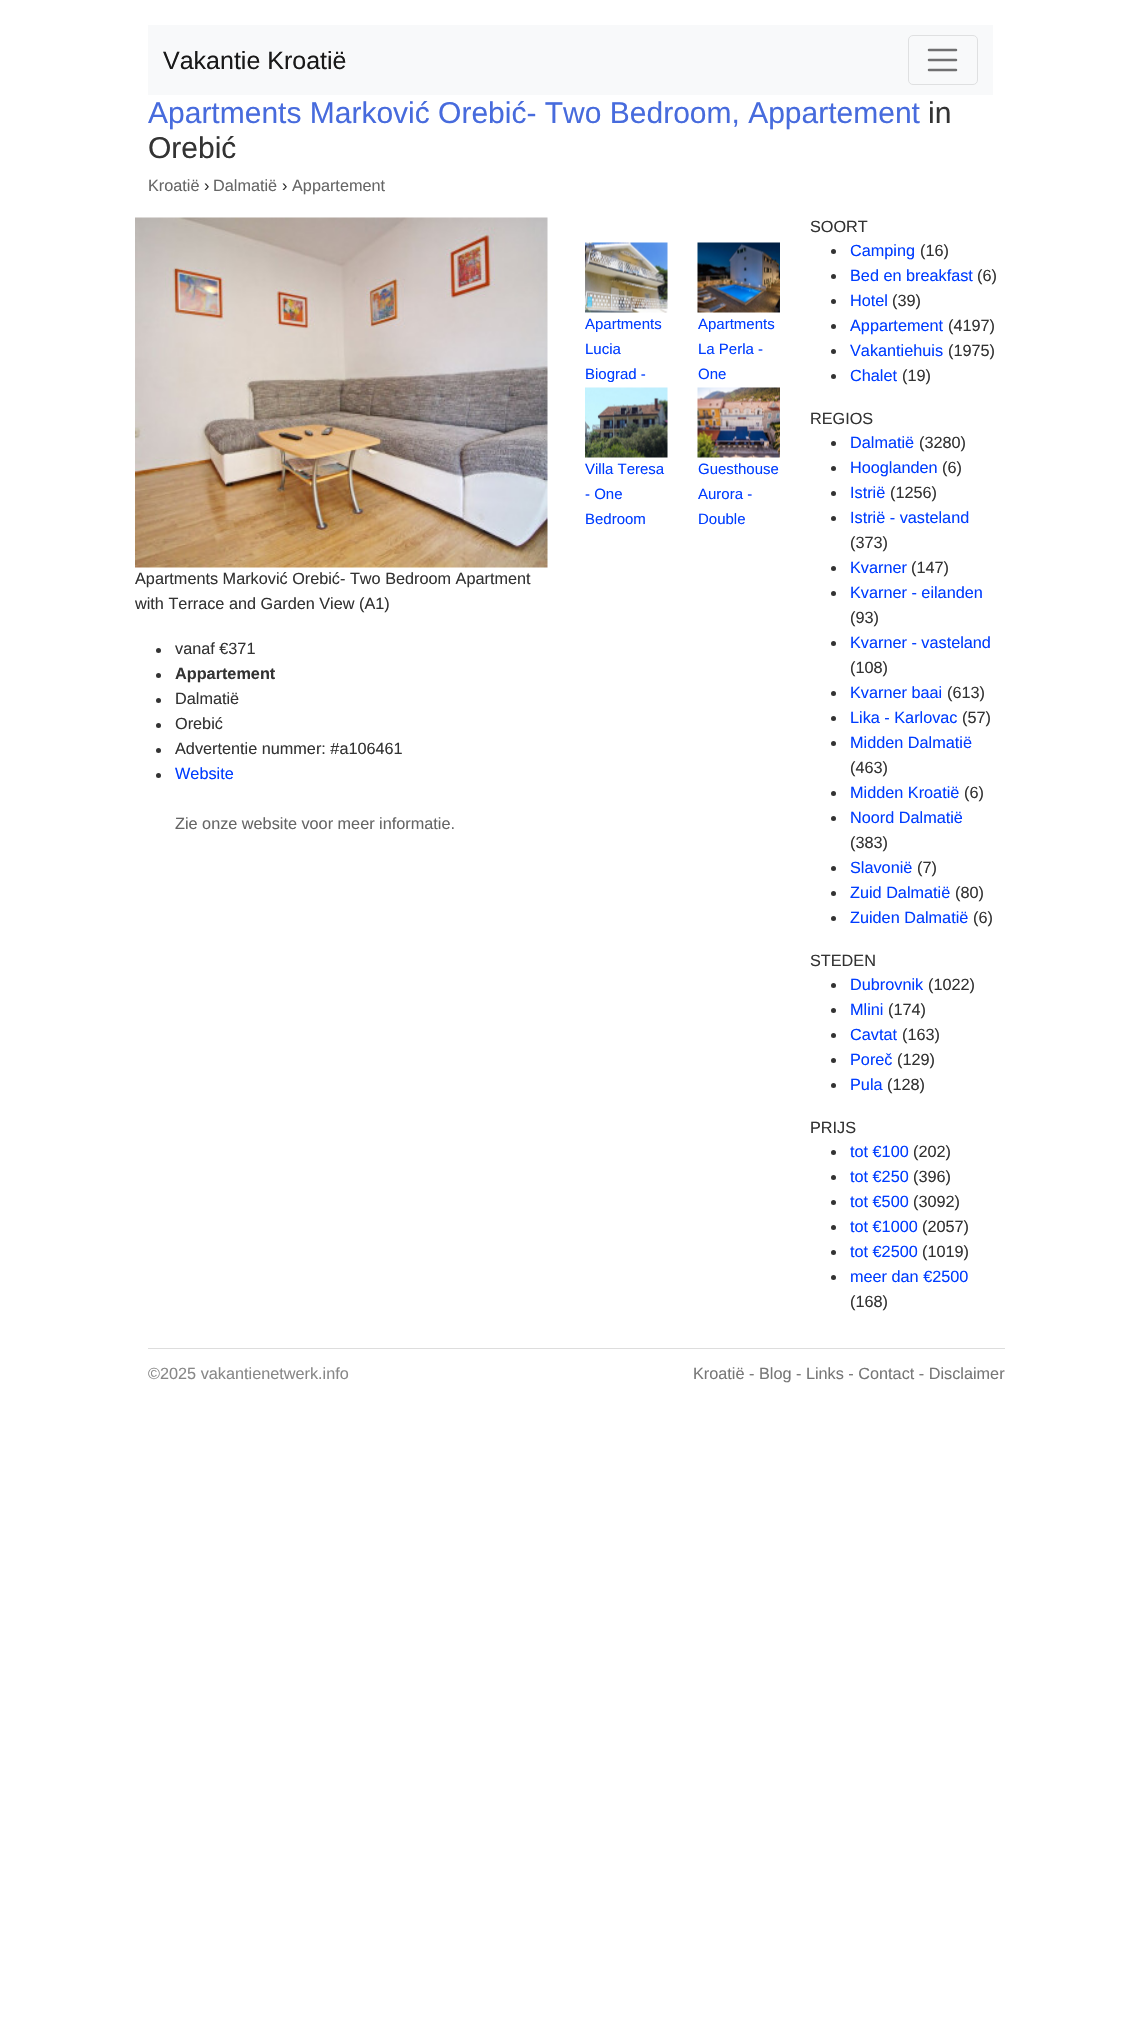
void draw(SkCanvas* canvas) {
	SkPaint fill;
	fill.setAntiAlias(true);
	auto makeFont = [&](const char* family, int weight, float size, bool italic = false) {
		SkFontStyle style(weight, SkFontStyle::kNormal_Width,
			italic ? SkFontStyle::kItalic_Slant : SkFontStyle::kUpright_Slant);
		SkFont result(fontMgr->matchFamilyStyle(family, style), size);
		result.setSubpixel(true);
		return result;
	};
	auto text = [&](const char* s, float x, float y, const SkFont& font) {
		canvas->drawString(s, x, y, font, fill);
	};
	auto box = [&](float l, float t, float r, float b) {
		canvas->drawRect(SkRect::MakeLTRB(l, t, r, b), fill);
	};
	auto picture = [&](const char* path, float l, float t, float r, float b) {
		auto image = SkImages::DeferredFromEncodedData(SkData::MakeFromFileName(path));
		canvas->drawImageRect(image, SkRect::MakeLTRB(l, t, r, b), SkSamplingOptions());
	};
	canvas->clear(0xFFFFFFFF);
	fill.setColor(0xFFF8F9FA);
	box(148, 25, 993, 95);
	fill.setStyle(SkPaint::kStroke_Style);
	fill.setStrokeWidth(1);
	fill.setColor(0xFFDFE0E1);
	canvas->drawRoundRect(SkRect::MakeLTRB(908.5f, 35.5f, 977.5f, 84.5f), 4.5f, 4.5f, fill);
	fill.setStrokeWidth(2.5f);
	fill.setStrokeCap(SkPaint::kRound_Cap);
	fill.setColor(0xFF707071);
	canvas->drawPath(SkPathBuilder().moveTo(929, 50).lineTo(956, 50).moveTo(929, 60).lineTo(956, 60).moveTo(929, 70).lineTo(956, 70).detach(), fill);
	picture("image0.png", 585, 242, 668, 313);
	picture("image1.png", 697, 242, 780, 313);
	picture("image2.png", 585, 387, 668, 458);
	picture("image3.png", 697, 387, 780, 458);
	picture("image4.png", 135, 217, 548, 568);
	fill.setStyle(SkPaint::kFill_Style);
	fill.setColor(0xFF333333);
	canvas->drawCircle(158.5f, 650.5f, 2.5f, fill);
	canvas->drawCircle(158.5f, 675.5f, 2.5f, fill);
	canvas->drawCircle(158.5f, 700.5f, 2.5f, fill);
	canvas->drawCircle(158.5f, 725.5f, 2.5f, fill);
	canvas->drawCircle(158.5f, 750.5f, 2.5f, fill);
	canvas->drawCircle(158.5f, 775.5f, 2.5f, fill);
	canvas->drawCircle(833.5f, 251.5f, 2.5f, fill);
	canvas->drawCircle(833.5f, 276.5f, 2.5f, fill);
	canvas->drawCircle(833.5f, 301.5f, 2.5f, fill);
	canvas->drawCircle(833.5f, 326.5f, 2.5f, fill);
	canvas->drawCircle(833.5f, 351.5f, 2.5f, fill);
	canvas->drawCircle(833.5f, 376.5f, 2.5f, fill);
	canvas->drawCircle(833.5f, 443.5f, 2.5f, fill);
	canvas->drawCircle(833.5f, 468.5f, 2.5f, fill);
	canvas->drawCircle(833.5f, 493.5f, 2.5f, fill);
	canvas->drawCircle(833.5f, 518.5f, 2.5f, fill);
	canvas->drawCircle(833.5f, 568.5f, 2.5f, fill);
	canvas->drawCircle(833.5f, 593.5f, 2.5f, fill);
	canvas->drawCircle(833.5f, 643.5f, 2.5f, fill);
	canvas->drawCircle(833.5f, 693.5f, 2.5f, fill);
	canvas->drawCircle(833.5f, 718.5f, 2.5f, fill);
	canvas->drawCircle(833.5f, 743.5f, 2.5f, fill);
	canvas->drawCircle(833.5f, 793.5f, 2.5f, fill);
	canvas->drawCircle(833.5f, 818.5f, 2.5f, fill);
	canvas->drawCircle(833.5f, 868.5f, 2.5f, fill);
	canvas->drawCircle(833.5f, 893.5f, 2.5f, fill);
	canvas->drawCircle(833.5f, 918.5f, 2.5f, fill);
	canvas->drawCircle(833.5f, 985.5f, 2.5f, fill);
	canvas->drawCircle(833.5f, 1010.5f, 2.5f, fill);
	canvas->drawCircle(833.5f, 1035.5f, 2.5f, fill);
	canvas->drawCircle(833.5f, 1060.5f, 2.5f, fill);
	canvas->drawCircle(833.5f, 1085.5f, 2.5f, fill);
	canvas->drawCircle(833.5f, 1152.5f, 2.5f, fill);
	canvas->drawCircle(833.5f, 1177.5f, 2.5f, fill);
	canvas->drawCircle(833.5f, 1202.5f, 2.5f, fill);
	canvas->drawCircle(833.5f, 1227.5f, 2.5f, fill);
	canvas->drawCircle(833.5f, 1252.5f, 2.5f, fill);
	canvas->drawCircle(833.5f, 1277.5f, 2.5f, fill);
	fill.setColor(0xFFDDDDDD);
	box(148, 1348, 1005, 1349);
	auto font1 = makeFont("Liberation Sans", 400, 25);
	fill.setColor(0xFF191919);
	text("Vakantie Kroatië", 163, 69, font1);
	auto font2 = makeFont("Liberation Sans", 400, 30);
	fill.setColor(0xFF476BDD);
	text("Apartments Marković Orebić- Two Bedroom, Appartement", 148, 123, font2);
	fill.setColor(0xFF333333);
	text("in", 928, 123, font2);
	text("Orebić", 148, 158, font2);
	auto font3 = makeFont("Liberation Sans", 400, 16.25f);
	fill.setColor(0xFF666666);
	text("Kroatië", 148, 191, font3);
	fill.setColor(0xFF333333);
	text("›", 204, 191, font3);
	fill.setColor(0xFF666666);
	text("Dalmatië", 213, 191, font3);
	fill.setColor(0xFF333333);
	text("›", 282, 191, font3);
	fill.setColor(0xFF666666);
	text("Appartement", 292, 191, font3);
	auto font4 = makeFont("Liberation Sans", 400, 15);
	fill.setColor(0xFF003DFF);
	text("Apartments", 585, 329, font4);
	text("Lucia", 585, 354, font4);
	text("Biograd -", 585, 379, font4);
	text("Apartments", 698, 329, font4);
	text("La Perla -", 698, 354, font4);
	text("One", 698, 379, font4);
	text("Villa Teresa", 585, 474, font4);
	text("- One", 585, 499, font4);
	text("Bedroom", 585, 524, font4);
	text("Guesthouse", 698, 474, font4);
	text("Aurora -", 698, 499, font4);
	text("Double", 698, 524, font4);
	fill.setColor(0xFF333333);
	text("Apartments Marković Orebić- Two Bedroom Apartment", 135, 584, font3);
	text("with Terrace and Garden View (A1)", 135, 609, font3);
	text("vanaf €371", 175, 654, font3);
	auto font5 = makeFont("Liberation Sans", 700, 16.25f);
	text("Appartement", 175, 679, font5);
	text("Dalmatië", 175, 704, font3);
	text("Orebić", 175, 729, font3);
	text("Advertentie nummer: #a106461", 175, 754, font3);
	fill.setColor(0xFF003DFF);
	text("Website", 175, 779, font3);
	fill.setColor(0xFF666666);
	text("Zie onze website voor meer informatie.", 175, 829, font3);
	fill.setColor(0xFF333333);
	text("SOORT", 810, 232, font3);
	fill.setColor(0xFF003DFF);
	text("Camping", 850, 256, font3);
	fill.setColor(0xFF333333);
	text("(16)", 920, 256, font3);
	fill.setColor(0xFF003DFF);
	text("Bed en breakfast", 850, 281, font3);
	fill.setColor(0xFF333333);
	text("(6)", 977, 281, font3);
	fill.setColor(0xFF003DFF);
	text("Hotel", 850, 306, font3);
	fill.setColor(0xFF333333);
	text("(39)", 892, 306, font3);
	fill.setColor(0xFF003DFF);
	text("Appartement", 850, 331, font3);
	fill.setColor(0xFF333333);
	text("(4197)", 948, 331, font3);
	fill.setColor(0xFF003DFF);
	text("Vakantiehuis", 850, 356, font3);
	fill.setColor(0xFF333333);
	text("(1975)", 948, 356, font3);
	fill.setColor(0xFF003DFF);
	text("Chalet", 850, 381, font3);
	fill.setColor(0xFF333333);
	text("(19)", 902, 381, font3);
	text("REGIOS", 810, 424, font3);
	fill.setColor(0xFF003DFF);
	text("Dalmatië", 850, 448, font3);
	fill.setColor(0xFF333333);
	text("(3280)", 919, 448, font3);
	fill.setColor(0xFF003DFF);
	text("Hooglanden", 850, 473, font3);
	fill.setColor(0xFF333333);
	text("(6)", 942, 473, font3);
	fill.setColor(0xFF003DFF);
	text("Istrië", 850, 498, font3);
	fill.setColor(0xFF333333);
	text("(1256)", 890, 498, font3);
	fill.setColor(0xFF003DFF);
	text("Istrië - vasteland", 850, 523, font3);
	fill.setColor(0xFF333333);
	text("(373)", 850, 548, font3);
	fill.setColor(0xFF003DFF);
	text("Kvarner", 850, 573, font3);
	fill.setColor(0xFF333333);
	text("(147)", 911, 573, font3);
	fill.setColor(0xFF003DFF);
	text("Kvarner - eilanden", 850, 598, font3);
	fill.setColor(0xFF333333);
	text("(93)", 850, 623, font3);
	fill.setColor(0xFF003DFF);
	text("Kvarner - vasteland", 850, 648, font3);
	fill.setColor(0xFF333333);
	text("(108)", 850, 673, font3);
	fill.setColor(0xFF003DFF);
	text("Kvarner baai", 850, 698, font3);
	fill.setColor(0xFF333333);
	text("(613)", 947, 698, font3);
	fill.setColor(0xFF003DFF);
	text("Lika - Karlovac", 850, 723, font3);
	fill.setColor(0xFF333333);
	text("(57)", 962, 723, font3);
	fill.setColor(0xFF003DFF);
	text("Midden Dalmatië", 850, 748, font3);
	fill.setColor(0xFF333333);
	text("(463)", 850, 773, font3);
	fill.setColor(0xFF003DFF);
	text("Midden Kroatië", 850, 798, font3);
	fill.setColor(0xFF333333);
	text("(6)", 964, 798, font3);
	fill.setColor(0xFF003DFF);
	text("Noord Dalmatië", 850, 823, font3);
	fill.setColor(0xFF333333);
	text("(383)", 850, 848, font3);
	fill.setColor(0xFF003DFF);
	text("Slavonië", 850, 873, font3);
	fill.setColor(0xFF333333);
	text("(7)", 917, 873, font3);
	fill.setColor(0xFF003DFF);
	text("Zuid Dalmatië", 850, 898, font3);
	fill.setColor(0xFF333333);
	text("(80)", 955, 898, font3);
	fill.setColor(0xFF003DFF);
	text("Zuiden Dalmatië", 850, 923, font3);
	fill.setColor(0xFF333333);
	text("(6)", 973, 923, font3);
	text("STEDEN", 810, 966, font3);
	fill.setColor(0xFF003DFF);
	text("Dubrovnik", 850, 990, font3);
	fill.setColor(0xFF333333);
	text("(1022)", 928, 990, font3);
	fill.setColor(0xFF003DFF);
	text("Mlini", 850, 1015, font3);
	fill.setColor(0xFF333333);
	text("(174)", 888, 1015, font3);
	fill.setColor(0xFF003DFF);
	text("Cavtat", 850, 1040, font3);
	fill.setColor(0xFF333333);
	text("(163)", 902, 1040, font3);
	fill.setColor(0xFF003DFF);
	text("Poreč", 850, 1065, font3);
	fill.setColor(0xFF333333);
	text("(129)", 897, 1065, font3);
	fill.setColor(0xFF003DFF);
	text("Pula", 850, 1090, font3);
	fill.setColor(0xFF333333);
	text("(128)", 887, 1090, font3);
	text("PRIJS", 810, 1133, font3);
	fill.setColor(0xFF003DFF);
	text("tot €100", 850, 1157, font3);
	fill.setColor(0xFF333333);
	text("(202)", 913, 1157, font3);
	fill.setColor(0xFF003DFF);
	text("tot €250", 850, 1182, font3);
	fill.setColor(0xFF333333);
	text("(396)", 913, 1182, font3);
	fill.setColor(0xFF003DFF);
	text("tot €500", 850, 1207, font3);
	fill.setColor(0xFF333333);
	text("(3092)", 913, 1207, font3);
	fill.setColor(0xFF003DFF);
	text("tot €1000", 850, 1232, font3);
	fill.setColor(0xFF333333);
	text("(2057)", 922, 1232, font3);
	fill.setColor(0xFF003DFF);
	text("tot €2500", 850, 1257, font3);
	fill.setColor(0xFF333333);
	text("(1019)", 922, 1257, font3);
	fill.setColor(0xFF003DFF);
	text("meer dan €2500", 850, 1282, font3);
	fill.setColor(0xFF333333);
	text("(168)", 850, 1307, font3);
	fill.setColor(0xFF888888);
	text("©2025 vakantienetwerk.info", 148, 1379, font3);
	fill.setColor(0xFF777777);
	text("Kroatië - Blog - Links - Contact - Disclaimer", 693, 1379, font3);
}
